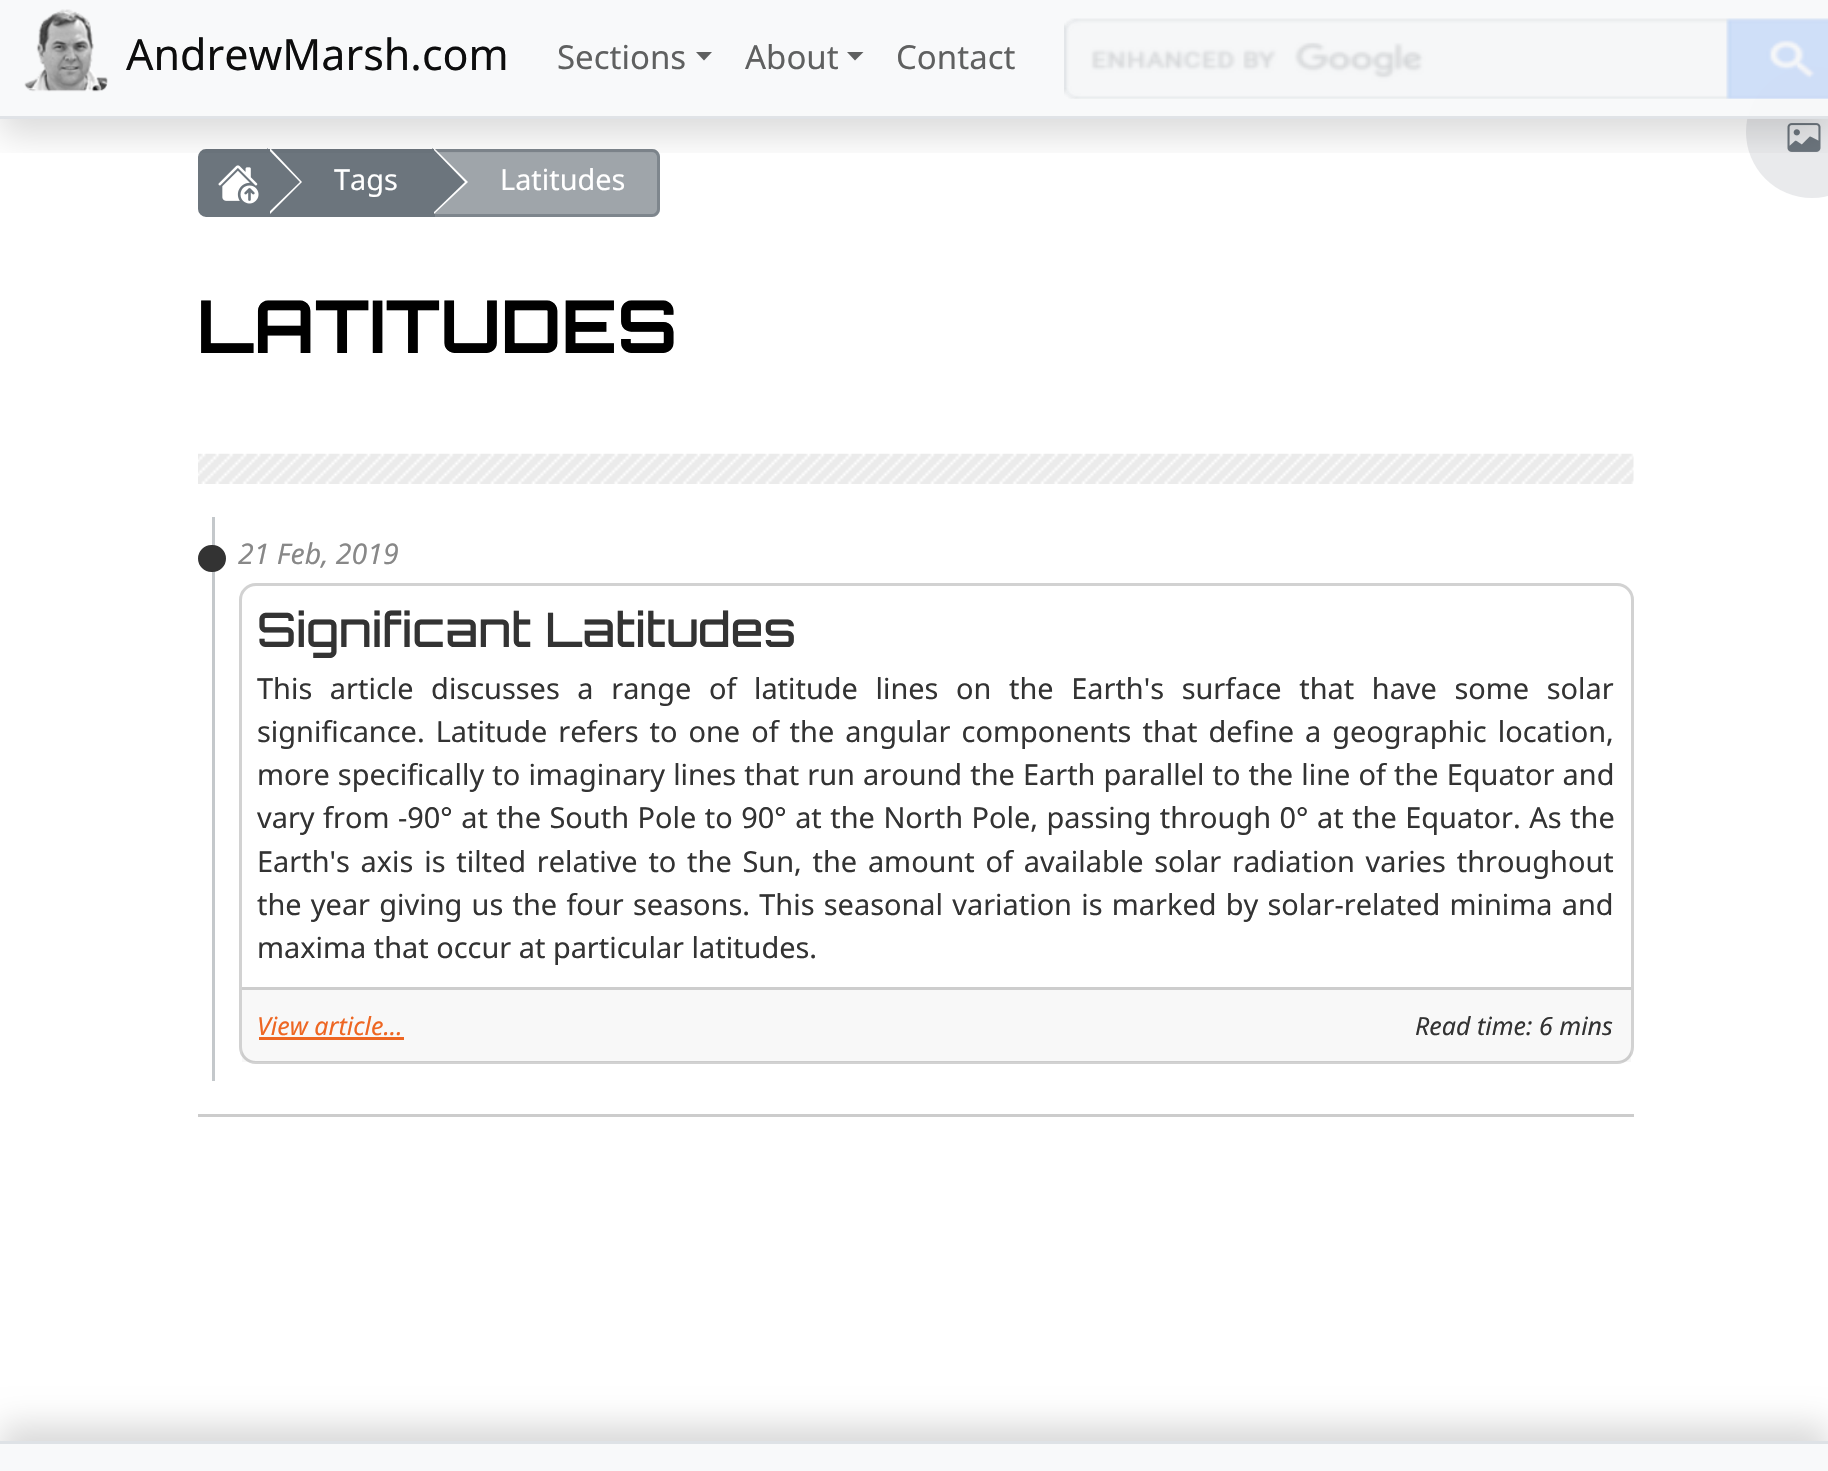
void draw(SkCanvas* canvas) {
	SkPaint fill;
	fill.setAntiAlias(true);
	auto makeFont = [&](const char* family, int weight, float size, bool italic = false) {
		SkFontStyle style(weight, SkFontStyle::kNormal_Width,
			italic ? SkFontStyle::kItalic_Slant : SkFontStyle::kUpright_Slant);
		SkFont result(fontMgr->matchFamilyStyle(family, style), size);
		result.setSubpixel(true);
		return result;
	};
	auto text = [&](const char* s, float x, float y, const SkFont& font) {
		canvas->drawString(s, x, y, font, fill);
	};
	auto spacedText = [&](const char* s, float x, float y, const SkFont& font, const SkPaint& ink, float letter, float word) {
		std::vector<SkGlyphID> glyphs(font.countText(s, strlen(s), SkTextEncoding::kUTF8));
		std::vector<float> xs(glyphs.size());
		font.textToGlyphs(s, strlen(s), SkTextEncoding::kUTF8, glyphs);
		font.getXPos(glyphs, xs, x);
		float extra = 0;
		for (size_t i = 0; i < glyphs.size(); i++) {
			xs[i] += extra;
			extra += letter + word * (glyphs[i] == font.unicharToGlyph(' '));
		}
		canvas->drawTextBlob(SkTextBlob::MakeFromPosHGlyphs(glyphs, xs, y, font), 0, 0, ink);
	};
	auto box = [&](float l, float t, float r, float b) {
		canvas->drawRect(SkRect::MakeLTRB(l, t, r, b), fill);
	};
	auto picture = [&](const char* path, float l, float t, float r, float b) {
		auto image = SkImages::DeferredFromEncodedData(SkData::MakeFromFileName(path));
		canvas->drawImageRect(image, SkRect::MakeLTRB(l, t, r, b), SkSamplingOptions());
	};
	canvas->clear(0xFFFFFFFF);
	fill.setColor(0xFF6C757D);
	canvas->drawPath(SkPathBuilder().moveTo(206, 150.5f).lineTo(268.5f, 150.5f).lineTo(268.5f, 215.5f).lineTo(206, 215.5f).cubicTo(202.5f, 215.5f, 199.5f, 212.5f, 199.5f, 209).lineTo(199.5f, 157).cubicTo(199.5f, 153.5f, 202.5f, 150.5f, 206, 150.5f).close().detach(), fill);
	fill.setStyle(SkPaint::kStroke_Style);
	fill.setStrokeWidth(3);
	canvas->drawPath(SkPathBuilder().moveTo(206, 150.5f).lineTo(268.5f, 150.5f).lineTo(268.5f, 215.5f).lineTo(206, 215.5f).cubicTo(202.5f, 215.5f, 199.5f, 212.5f, 199.5f, 209).lineTo(199.5f, 157).cubicTo(199.5f, 153.5f, 202.5f, 150.5f, 206, 150.5f).close().detach(), fill);
	fill.setStyle(SkPaint::kFill_Style);
	box(270, 149, 435, 217);
	fill.setColor(0xFFFFFFFF);
	canvas->drawPath(SkPathBuilder().moveTo(270, 214).lineTo(270, 148).lineTo(302, 182).close().detach(), fill);
	fill.setColor(0xFF6C757D);
	canvas->drawPath(SkPathBuilder().moveTo(267, 214).lineTo(267, 148).lineTo(300, 182).close().detach(), fill);
	picture("image2.png", 218, 165, 259, 204);
	fill.setColor(0xA66C757D);
	canvas->drawPath(SkPathBuilder().moveTo(432, 149).lineTo(652, 149).cubicTo(656.5f, 149, 660, 152.5f, 660, 157).lineTo(660, 209).cubicTo(660, 213.5f, 656.5f, 217, 652, 217).lineTo(432, 217).close().detach(), fill);
	fill.setStyle(SkPaint::kStroke_Style);
	canvas->drawPath(SkPathBuilder().moveTo(433.5f, 150.5f).lineTo(652, 150.5f).cubicTo(655.5f, 150.5f, 658.5f, 153.5f, 658.5f, 157).lineTo(658.5f, 209).cubicTo(658.5f, 212.5f, 655.5f, 215.5f, 652, 215.5f).lineTo(433.5f, 215.5f).close().detach(), fill);
	fill.setStyle(SkPaint::kFill_Style);
	fill.setColor(0xFFFFFFFF);
	canvas->drawPath(SkPathBuilder().moveTo(434, 214).lineTo(434, 148).lineTo(468, 182).close().detach(), fill);
	fill.setColor(0xFF6C757D);
	canvas->drawPath(SkPathBuilder().moveTo(432, 214).lineTo(432, 148).lineTo(465, 182).close().detach(), fill);
	fill.setColor(0xFFE9EAEC);
	canvas->drawCircle(1812, 132, 66, fill);
	picture("image3.png", 1787, 123, 1821, 152);
	canvas->save();
	canvas->clipRect(SkRect::MakeLTRB(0, 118, 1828, 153));
	fill.setColor(0x24000000);
	fill.setMaskFilter(SkMaskFilter::MakeBlur(kNormal_SkBlurStyle, 16.5f));
	canvas->drawRect(SkRect::MakeLTRB(0, 17, 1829, 135), fill);
	fill.setMaskFilter(nullptr);
	canvas->restore();
	fill.setColor(0xF2F8F9FA);
	box(0, 0, 1828, 118);
	fill.setColor(0xF2DEE2E6);
	box(0, 116, 1828, 119);
	picture("image0.png", 24, 9, 108, 92);
	fill.setColor(0xFF5F6060);
	canvas->drawPath(SkPathBuilder().moveTo(696, 52).lineTo(712, 52).lineTo(704, 60.5f).close().detach(), fill);
	canvas->drawPath(SkPathBuilder().moveTo(847, 52).lineTo(863.5f, 52).lineTo(855, 60.5f).close().detach(), fill);
	picture("image1.png", 1064, 18, 1828, 99);
	picture("image4.png", 198, 453, 1634, 484);
	fill.setColor(0xFFC4C8CB);
	box(212, 517, 215, 1081);
	fill.setColor(0xFF333333);
	canvas->drawRoundRect(SkRect::MakeLTRB(199.5f, 546.5f, 224.5f, 570.5f), 12, 12, fill);
	fill.setStyle(SkPaint::kStroke_Style);
	canvas->drawRoundRect(SkRect::MakeLTRB(199.5f, 546.5f, 224.5f, 570.5f), 12, 12, fill);
	fill.setColor(0xFFD2D2D2);
	canvas->drawRoundRect(SkRect::MakeLTRB(240.5f, 584.5f, 1632.5f, 1062.5f), 15.5f, 15.5f, fill);
	fill.setStyle(SkPaint::kFill_Style);
	fill.setColor(0x08212529);
	box(242, 990, 1631, 1062);
	fill.setColor(0xFFCDCDCD);
	box(242, 987, 1631, 990);
	fill.setColor(0xFFEE6622);
	box(259, 1037, 404, 1040);
	fill.setColor(0xFFCCCCCC);
	box(198, 1114, 1634, 1117);
	fill.setColor(0x26000000);
	fill.setMaskFilter(SkMaskFilter::MakeBlur(kNormal_SkBlurStyle, 16.5f));
	canvas->drawRect(SkRect::MakeLTRB(0, 1425, 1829, 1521), fill);
	fill.setMaskFilter(nullptr);
	fill.setColor(0xFFF8F9FA);
	box(0, 1444, 1828, 1471);
	fill.setColor(0xFFDEE2E6);
	box(0, 1441, 1828, 1444);
	auto font1 = makeFont("Noto Sans", 400, 43);
	fill.setColor(0xFF0D0D0D);
	text("AndrewMarsh.com", 126, 70, font1);
	auto font2 = makeFont("Noto Sans", 400, 33);
	fill.setColor(0xFF5F6060);
	text("Sections", 557, 69, font2);
	text("About", 745, 69, font2);
	text("Contact", 896, 69, font2);
	auto font3 = makeFont("Noto Sans", 400, 28.9f);
	fill.setColor(0xFFFFFFFF);
	text("Tags", 334, 190, font3);
	text("Latitudes", 500, 190, font3);
	auto font4 = makeFont("Orbitron", 700, 72.75f);
	fill.setColor(0xFF000000);
	text("LATITUDES", 197, 353, font4);
	auto font5 = makeFont("Noto Sans", 400, 28.5f, true);
	fill.setColor(0xFF888888);
	text("21 Feb, 2019", 238, 564, font5);
	auto font6 = makeFont("Orbitron", 500, 47.5f);
	fill.setColor(0xFF333333);
	text("Significant Latitudes", 257, 647, font6);
	spacedText("This article discusses a range of latitude lines on the Earth's surface that have some solar", 257, 699, font3, fill, 0, 10.1f);
	spacedText("significance. Latitude refers to one of the angular components that define a geographic location,", 257, 742, font3, fill, 0, 3.5f);
	spacedText("more specifically to imaginary lines that run around the Earth parallel to the line of the Equator and", 257, 785, font3, fill, 0, 0.6f);
	spacedText("vary from -90° at the South Pole to 90° at the North Pole, passing through 0° at the Equator. As the", 257, 828, font3, fill, 0, 1);
	spacedText("Earth's axis is tilted relative to the Sun, the amount of available solar radiation varies throughout", 257, 872, font3, fill, 0, 3.25f);
	spacedText("the year giving us the four seasons. This seasonal variation is marked by solar-related minima and", 257, 915, font3, fill, 0, 1.75f);
	text("maxima that occur at particular latitudes.", 257, 958, font3);
	auto font7 = makeFont("Noto Sans", 400, 25, true);
	fill.setColor(0xFFEE6622);
	text("View article...", 257, 1035, font7);
	fill.setColor(0xFF333333);
	text("Read time: 6 mins", 1415, 1035, font7);
}
